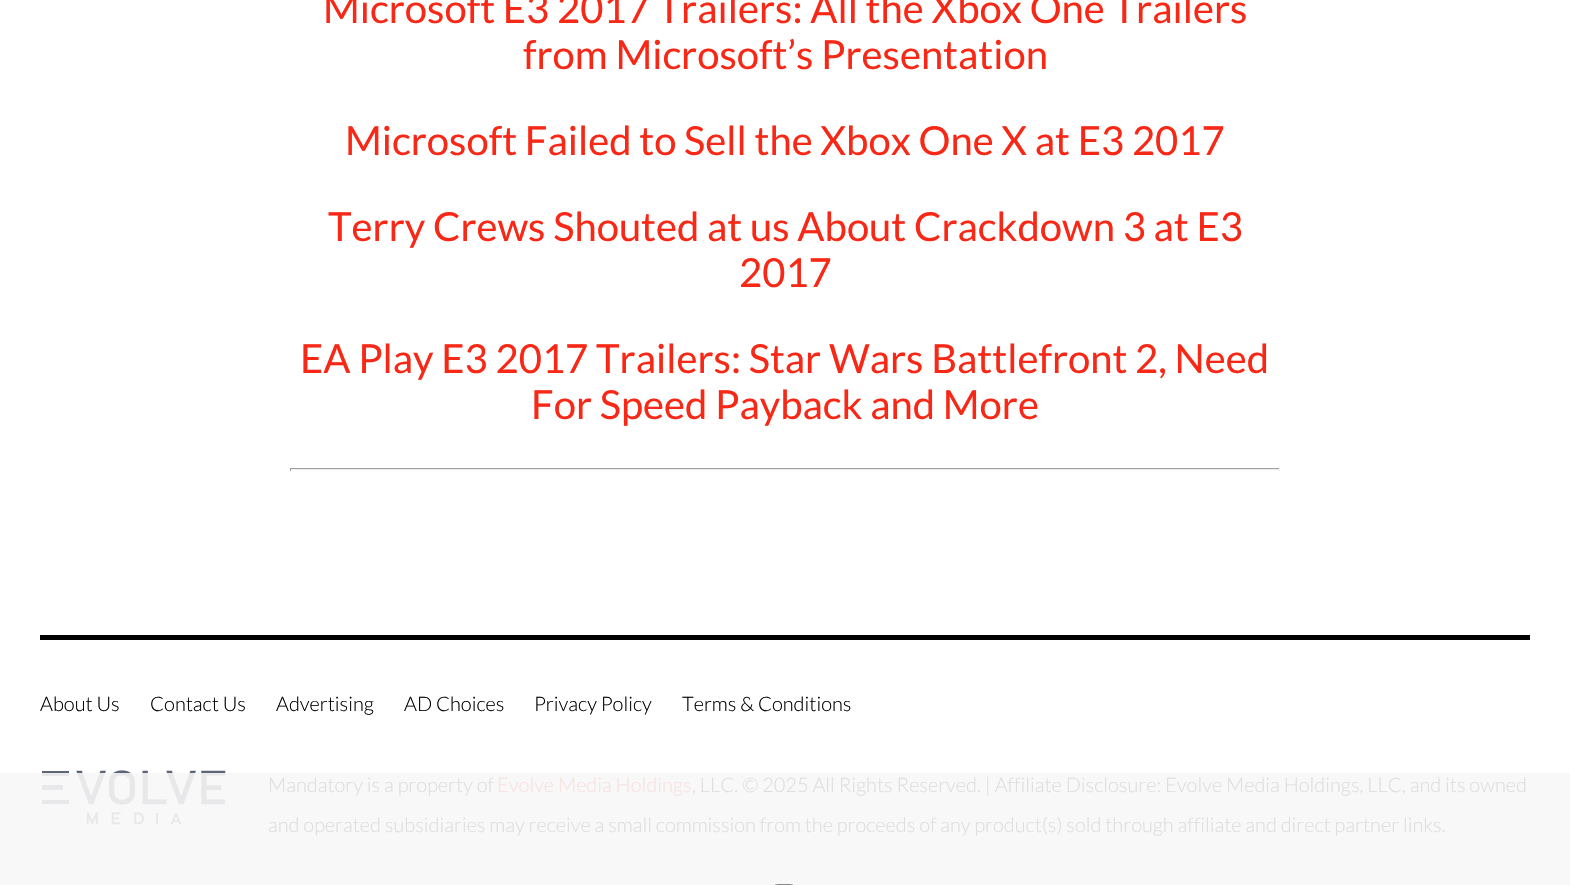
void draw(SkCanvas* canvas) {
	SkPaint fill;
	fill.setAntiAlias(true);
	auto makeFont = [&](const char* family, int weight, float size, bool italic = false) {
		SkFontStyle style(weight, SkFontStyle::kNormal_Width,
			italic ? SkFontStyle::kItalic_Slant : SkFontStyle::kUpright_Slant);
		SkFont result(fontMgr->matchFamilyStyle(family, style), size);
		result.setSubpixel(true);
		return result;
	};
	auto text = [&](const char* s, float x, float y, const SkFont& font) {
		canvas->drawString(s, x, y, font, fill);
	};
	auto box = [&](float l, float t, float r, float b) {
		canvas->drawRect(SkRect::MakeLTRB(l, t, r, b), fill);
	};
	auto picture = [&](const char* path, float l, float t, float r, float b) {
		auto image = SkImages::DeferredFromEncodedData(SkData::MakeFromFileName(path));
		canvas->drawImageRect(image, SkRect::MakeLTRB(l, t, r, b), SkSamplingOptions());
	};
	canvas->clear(0xFFFFFFFF);
	fill.setColor(0xFFF8F8F8);
	box(0, 773, 1570, 885);
	fill.setColor(0xFF9F9F9F);
	box(290, 468, 1280, 469);
	fill.setColor(0xFFEEEEEE);
	box(1279, 468, 1280, 471);
	box(290, 469, 1280, 470);
	fill.setColor(0xFF9F9F9F);
	box(290, 468, 291, 471);
	fill.setColor(0xFF000000);
	box(40, 635, 1530, 640);
	picture("image0.png", 42, 770, 226, 825);
	fill.setStyle(SkPaint::kStroke_Style);
	fill.setStrokeWidth(1);
	fill.setColor(0xFF888888);
	canvas->drawRoundRect(SkRect::MakeLTRB(770.5f, 884.5f, 797.5f, 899.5f), 13, 13, fill);
	auto font1 = makeFont("Lato", 400, 40);
	fill.setStyle(SkPaint::kFill_Style);
	fill.setColor(0xFFF82816);
	text("Microsoft E3 2017 Trailers: All the Xbox One Trailers", 323, 23, font1);
	text("from Microsoft’s Presentation", 523, 69, font1);
	text("Microsoft Failed to Sell the Xbox One X at E3 2017", 345, 155, font1);
	text("Terry Crews Shouted at us About Crackdown 3 at E3", 328, 241, font1);
	text("2017", 739, 287, font1);
	text("EA Play E3 2017 Trailers: Star Wars Battlefront 2, Need", 300, 373, font1);
	text("For Speed Payback and More", 531, 419, font1);
	auto font2 = makeFont("Lato", 300, 20);
	fill.setColor(0xFF000000);
	text("About Us", 40, 711, font2);
	text("Contact Us", 150, 711, font2);
	text("Advertising", 276, 711, font2);
	text("AD Choices", 404, 711, font2);
	text("Privacy Policy", 534, 711, font2);
	text("Terms & Conditions", 682, 711, font2);
	fill.setColor(0xFFDEDEDE);
	text("Mandatory is a property of", 268, 792, font2);
	fill.setColor(0xFFF7E2E1);
	text("Evolve Media Holdings", 497, 792, font2);
	fill.setColor(0xFFDEDEDE);
	text(", LLC. © 2025 All Rights Reserved. | Affiliate Disclosure: Evolve Media Holdings, LLC, and its owned", 692, 792, font2);
	text("and operated subsidiaries may receive a small commission from the proceeds of any product(s) sold through affiliate and direct partner links.", 268, 832, font2);
}
